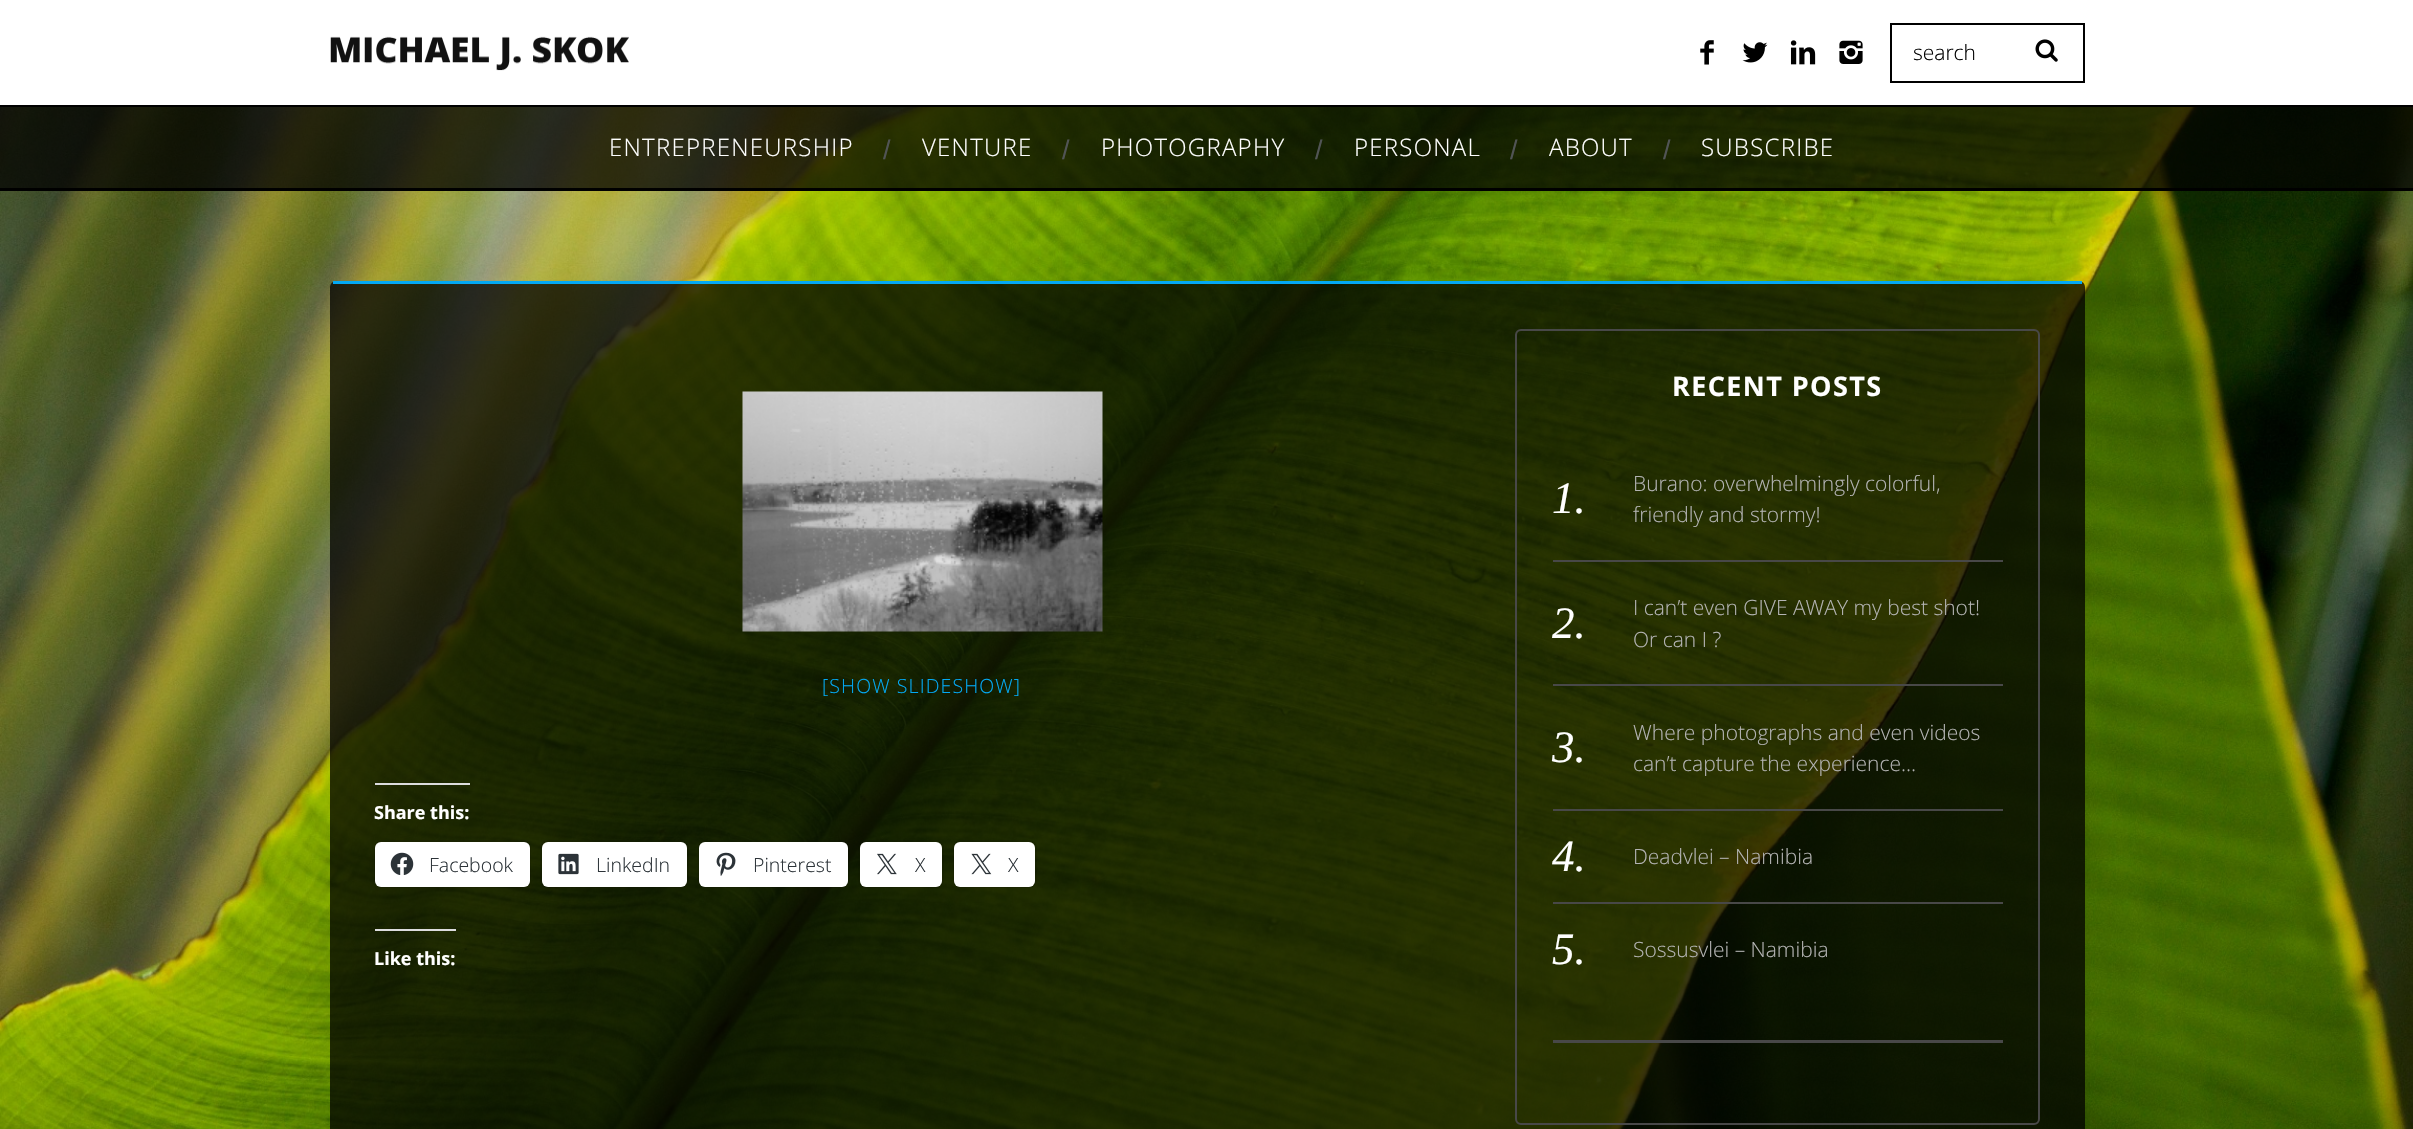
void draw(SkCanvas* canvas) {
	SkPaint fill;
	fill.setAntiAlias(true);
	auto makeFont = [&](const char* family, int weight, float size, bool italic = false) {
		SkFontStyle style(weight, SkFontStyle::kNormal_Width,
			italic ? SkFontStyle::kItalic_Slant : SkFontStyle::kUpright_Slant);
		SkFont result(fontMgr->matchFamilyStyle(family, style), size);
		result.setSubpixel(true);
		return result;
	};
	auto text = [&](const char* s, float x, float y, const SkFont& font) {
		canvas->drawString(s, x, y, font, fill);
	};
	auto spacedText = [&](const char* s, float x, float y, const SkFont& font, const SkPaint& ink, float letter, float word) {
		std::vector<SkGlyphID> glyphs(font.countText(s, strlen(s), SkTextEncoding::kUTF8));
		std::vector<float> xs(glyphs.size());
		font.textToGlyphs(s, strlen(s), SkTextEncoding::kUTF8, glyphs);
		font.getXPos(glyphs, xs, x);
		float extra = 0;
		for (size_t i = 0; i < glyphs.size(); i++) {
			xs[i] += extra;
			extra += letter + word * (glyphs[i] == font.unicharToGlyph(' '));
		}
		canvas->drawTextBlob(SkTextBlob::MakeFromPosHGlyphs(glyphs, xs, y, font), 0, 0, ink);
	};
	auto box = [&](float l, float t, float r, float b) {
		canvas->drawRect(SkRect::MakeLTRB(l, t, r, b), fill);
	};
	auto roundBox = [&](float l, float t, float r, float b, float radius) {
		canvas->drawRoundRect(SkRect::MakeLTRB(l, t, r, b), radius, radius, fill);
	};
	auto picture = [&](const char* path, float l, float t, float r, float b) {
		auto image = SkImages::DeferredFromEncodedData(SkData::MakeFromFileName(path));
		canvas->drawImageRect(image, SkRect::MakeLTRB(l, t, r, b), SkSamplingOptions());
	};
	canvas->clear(0xFFFFFFFF);
	picture("image0.png", 0, 107, 2413, 1129);
	picture("image1.png", 330, 36, 629, 71);
	picture("image2.png", 1700, 40, 1714, 65);
	picture("image3.png", 1742, 42, 1768, 63);
	picture("image4.png", 1790, 40, 1816, 65);
	picture("image5.png", 1839, 40, 1863, 64);
	fill.setStyle(SkPaint::kStroke_Style);
	fill.setStrokeWidth(2);
	fill.setColor(0xFF000000);
	canvas->drawRect(SkRect::MakeLTRB(1891, 24, 2084, 82), fill);
	picture("image6.png", 2035, 39, 2058, 62);
	fill.setStyle(SkPaint::kFill_Style);
	fill.setColor(0xBF000000);
	box(0, 107, 2413, 188);
	fill.setColor(0xFF000000);
	box(0, 105, 2413, 107);
	box(0, 188, 2413, 191);
	fill.setColor(0xBF000000);
	roundBox(330, 281, 2085, 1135, 6);
	fill.setColor(0xFF03A9F4);
	box(333, 281, 2082, 284);
	picture("image7.png", 742, 391, 1103, 632);
	fill.setColor(0xFFDCDCDE);
	box(375, 783, 470, 785);
	fill.setStyle(SkPaint::kStroke_Style);
	fill.setColor(0x1F000000);
	canvas->drawRoundRect(SkRect::MakeLTRB(375, 841, 530, 887), 7, 7, fill);
	fill.setStyle(SkPaint::kFill_Style);
	fill.setColor(0xFFFFFFFF);
	roundBox(375, 842, 530, 887, 6);
	picture("image8.png", 390, 852, 414, 875);
	fill.setStyle(SkPaint::kStroke_Style);
	fill.setColor(0x1F000000);
	canvas->drawRoundRect(SkRect::MakeLTRB(541, 841, 688, 887), 7, 7, fill);
	fill.setStyle(SkPaint::kFill_Style);
	fill.setColor(0xFFFFFFFF);
	roundBox(542, 842, 687, 887, 6);
	picture("image9.png", 558, 853, 579, 875);
	fill.setStyle(SkPaint::kStroke_Style);
	fill.setColor(0x1F000000);
	canvas->drawRoundRect(SkRect::MakeLTRB(699, 841, 848, 887), 7, 7, fill);
	fill.setStyle(SkPaint::kFill_Style);
	fill.setColor(0xFFFFFFFF);
	roundBox(699, 842, 848, 887, 6);
	picture("image10.png", 716, 852, 736, 876);
	fill.setStyle(SkPaint::kStroke_Style);
	fill.setColor(0x1F000000);
	canvas->drawRoundRect(SkRect::MakeLTRB(859, 841, 943, 887), 7, 7, fill);
	fill.setStyle(SkPaint::kFill_Style);
	fill.setColor(0xFFFFFFFF);
	roundBox(860, 842, 942, 887, 6);
	picture("image11.png", 877, 853, 897, 875);
	fill.setStyle(SkPaint::kStroke_Style);
	fill.setColor(0x1F000000);
	canvas->drawRoundRect(SkRect::MakeLTRB(954, 841, 1036, 887), 7, 7, fill);
	fill.setStyle(SkPaint::kFill_Style);
	fill.setColor(0xFFFFFFFF);
	roundBox(954, 842, 1035, 887, 6);
	picture("image12.png", 971, 853, 992, 875);
	fill.setColor(0xFFDCDCDE);
	box(375, 929, 456, 931);
	fill.setStyle(SkPaint::kStroke_Style);
	fill.setColor(0xFF484848);
	canvas->drawRoundRect(SkRect::MakeLTRB(1516, 330, 2039, 1124), 5, 5, fill);
	fill.setStyle(SkPaint::kFill_Style);
	box(1553, 1040, 2003, 1043);
	box(1553, 560, 2003, 562);
	box(1553, 684, 2003, 686);
	box(1553, 809, 2003, 811);
	box(1553, 902, 2003, 904);
	auto font1 = makeFont("Open Sans", 300, 21);
	fill.setColor(0xFF000000);
	text("search", 1913, 60, font1);
	auto font2 = makeFont("Open Sans", 300, 24);
	fill.setColor(0xFFFFFFFF);
	spacedText("ENTREPRENEURSHIP", 609, 156, font2, fill, 1.25f, 0);
	auto font3 = makeFont("Liberation Sans", 400, 27);
	fill.setColor(0xFF515455);
	spacedText("/", 883, 159, font3, fill, 1.25f, 0);
	fill.setColor(0xFFFFFFFF);
	spacedText("VENTURE", 922, 156, font2, fill, 1.25f, 0);
	fill.setColor(0xFF515455);
	spacedText("/", 1062, 159, font3, fill, 1.25f, 0);
	fill.setColor(0xFFFFFFFF);
	spacedText("PHOTOGRAPHY", 1101, 156, font2, fill, 1.25f, 0);
	fill.setColor(0xFF515455);
	spacedText("/", 1315, 159, font3, fill, 1.25f, 0);
	fill.setColor(0xFFFFFFFF);
	spacedText("PERSONAL", 1354, 156, font2, fill, 1.25f, 0);
	fill.setColor(0xFF515455);
	spacedText("/", 1510, 159, font3, fill, 1.25f, 0);
	fill.setColor(0xFFFFFFFF);
	spacedText("ABOUT", 1549, 156, font2, fill, 1.25f, 0);
	fill.setColor(0xFF515455);
	spacedText("/", 1663, 159, font3, fill, 1.25f, 0);
	fill.setColor(0xFFFFFFFF);
	spacedText("SUBSCRIBE", 1701, 156, font2, fill, 1.25f, 0);
	auto font4 = makeFont("Open Sans", 300, 19.5f);
	fill.setColor(0xFF03A9F4);
	spacedText("[SHOW SLIDESHOW]", 822, 693, font4, fill, 1.1f, 0);
	auto font5 = makeFont("Open Sans", 700, 18);
	fill.setColor(0xFFFFFFFF);
	text("Share this:", 374, 819, font5);
	fill.setColor(0xFF2C3338);
	text("Facebook", 429, 872, font4);
	text("LinkedIn", 596, 872, font4);
	text("Pinterest", 753, 872, font4);
	text("X", 915, 872, font4);
	text("X", 1008, 872, font4);
	fill.setColor(0xFFFFFFFF);
	text("Like this:", 374, 965, font5);
	auto font6 = makeFont("Open Sans", 700, 27);
	spacedText("RECENT POSTS", 1672, 396, font6, fill, 1.4f, 0);
	auto font7 = makeFont("Liberation Serif", 400, 45, true);
	text("1.", 1552, 513, font7);
	fill.setColor(0xFFB3B3B3);
	text("Burano: overwhelmingly colorful,", 1633, 491, font1);
	text("friendly and stormy!", 1633, 522, font1);
	fill.setColor(0xFFFFFFFF);
	text("2.", 1552, 638, font7);
	fill.setColor(0xFFB3B3B3);
	text("I can’t even GIVE AWAY my best shot!", 1633, 615, font1);
	text("Or can I ?", 1633, 647, font1);
	fill.setColor(0xFFFFFFFF);
	text("3.", 1552, 762, font7);
	fill.setColor(0xFFB3B3B3);
	text("Where photographs and even videos", 1633, 740, font1);
	text("can’t capture the experience…", 1633, 771, font1);
	fill.setColor(0xFFFFFFFF);
	text("4.", 1552, 871, font7);
	fill.setColor(0xFFB3B3B3);
	text("Deadvlei – Namibia", 1633, 864, font1);
	fill.setColor(0xFFFFFFFF);
	text("5.", 1552, 964, font7);
	fill.setColor(0xFFB3B3B3);
	text("Sossusvlei – Namibia", 1633, 957, font1);
}
